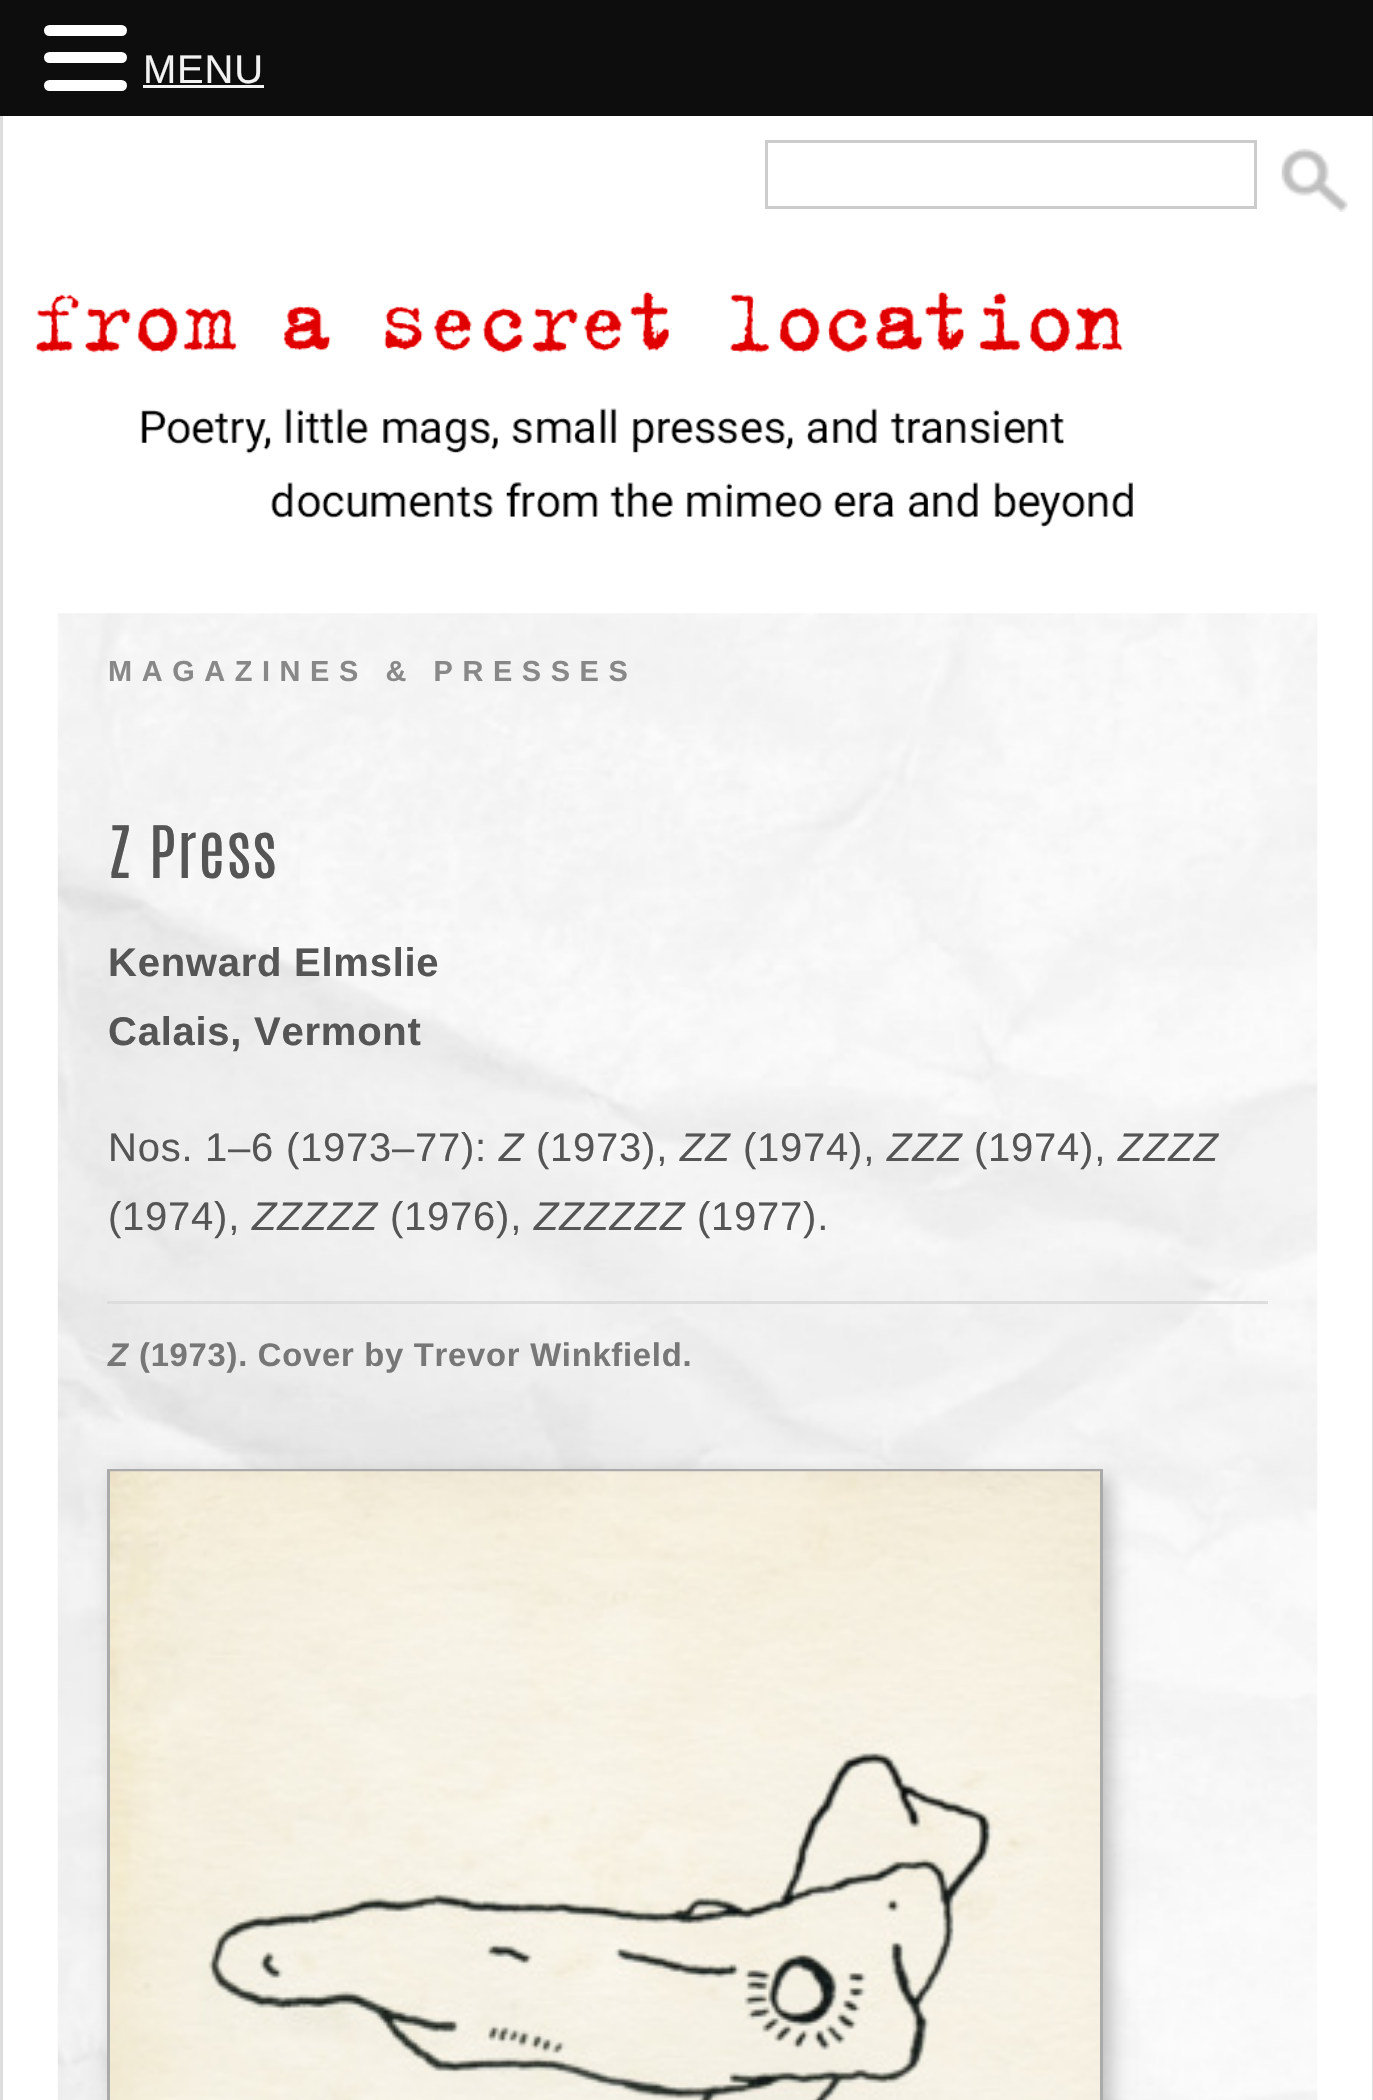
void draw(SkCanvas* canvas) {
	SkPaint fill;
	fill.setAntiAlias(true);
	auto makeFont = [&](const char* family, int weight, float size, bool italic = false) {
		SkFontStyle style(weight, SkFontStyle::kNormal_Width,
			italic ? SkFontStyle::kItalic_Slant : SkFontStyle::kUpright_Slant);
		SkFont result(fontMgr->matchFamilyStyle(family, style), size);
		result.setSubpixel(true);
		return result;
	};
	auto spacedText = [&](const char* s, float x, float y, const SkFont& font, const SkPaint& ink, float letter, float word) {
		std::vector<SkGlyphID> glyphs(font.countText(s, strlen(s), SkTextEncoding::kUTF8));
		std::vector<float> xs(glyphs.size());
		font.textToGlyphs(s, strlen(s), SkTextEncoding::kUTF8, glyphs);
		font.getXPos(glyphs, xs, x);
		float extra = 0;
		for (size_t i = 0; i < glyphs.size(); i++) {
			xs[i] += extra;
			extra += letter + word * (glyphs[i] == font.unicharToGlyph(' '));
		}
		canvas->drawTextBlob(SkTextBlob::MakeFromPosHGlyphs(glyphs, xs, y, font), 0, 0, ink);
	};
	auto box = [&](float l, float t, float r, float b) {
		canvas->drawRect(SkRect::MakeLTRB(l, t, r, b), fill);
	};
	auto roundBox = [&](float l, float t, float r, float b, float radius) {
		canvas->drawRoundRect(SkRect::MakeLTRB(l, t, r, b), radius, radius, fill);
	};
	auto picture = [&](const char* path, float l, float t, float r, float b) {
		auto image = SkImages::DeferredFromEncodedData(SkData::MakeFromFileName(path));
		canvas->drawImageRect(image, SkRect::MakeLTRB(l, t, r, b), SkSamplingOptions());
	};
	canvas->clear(0xFFFFFFFF);
	fill.setColor(0xFF0D0D0D);
	box(0, 0, 1373, 116);
	fill.setColor(0xFFFFFFFF);
	roundBox(44, 25, 127, 36, 5.5f);
	roundBox(44, 52, 127, 63, 5.5f);
	roundBox(44, 80, 127, 91, 5.5f);
	fill.setColor(0xFFF2F2F2);
	box(143, 85, 264, 88);
	fill.setColor(0xFFDDDDDD);
	box(1372, 116, 1373, 2100);
	box(0, 116, 3, 2100);
	fill.setStyle(SkPaint::kStroke_Style);
	fill.setStrokeWidth(3);
	fill.setColor(0xFFCCCCCC);
	canvas->drawRect(SkRect::MakeLTRB(766.5f, 141.5f, 1255.5f, 207.5f), fill);
	picture("image0.png", 1281, 148, 1348, 212);
	picture("image1.png", 35, 291, 1133, 528);
	picture("image2.png", 57, 613, 1318, 2100);
	fill.setStyle(SkPaint::kFill_Style);
	fill.setColor(0xFFDDDDDD);
	box(107, 1301, 1268, 1304);
	fill.setColor(0x3D000000);
	fill.setMaskFilter(SkMaskFilter::MakeBlur(kNormal_SkBlurStyle, 9.5f));
	canvas->drawRect(SkRect::MakeLTRB(116, 1477, 1111, 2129), fill);
	fill.setMaskFilter(nullptr);
	fill.setStyle(SkPaint::kStroke_Style);
	fill.setColor(0xFFAAAAAA);
	canvas->drawRect(SkRect::MakeLTRB(108.5f, 1470.5f, 1101.5f, 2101.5f), fill);
	picture("image3.png", 110, 1471, 1100, 2100);
	auto font1 = makeFont("Liberation Sans", 400, 40);
	fill.setStyle(SkPaint::kFill_Style);
	fill.setColor(0xFFF2F2F2);
	spacedText("MENU", 143, 83, font1, fill, 0.75f, 0);
	auto font2 = makeFont("Liberation Sans", 700, 28.9f);
	fill.setColor(0xFF888888);
	spacedText("MAGAZINES & PRESSES", 108, 681, font2, fill, 9.6f, 0);
	auto font3 = makeFont("Antonio", 400, 61.5f);
	fill.setColor(0xFF555555);
	spacedText("Z Press", 108, 878, font3, fill, 1.5f, 0);
	auto font4 = makeFont("Liberation Sans", 700, 40);
	spacedText("Kenward Elmslie", 108, 976, font4, fill, 0.75f, 0);
	spacedText("Calais, Vermont", 108, 1045, font4, fill, 0.75f, 0);
	spacedText("Nos. 1–6 (1973–77):", 108, 1161, font1, fill, 0.75f, 0);
	auto font5 = makeFont("Liberation Sans", 400, 40, true);
	spacedText("Z", 499, 1161, font5, fill, 0.75f, 0);
	spacedText("(1973),", 536, 1161, font1, fill, 0.75f, 0);
	spacedText("ZZ", 680, 1161, font5, fill, 0.75f, 0);
	spacedText("(1974),", 743, 1161, font1, fill, 0.75f, 0);
	spacedText("ZZZ", 887, 1161, font5, fill, 0.75f, 0);
	spacedText("(1974),", 974, 1161, font1, fill, 0.75f, 0);
	spacedText("ZZZZ", 1118, 1161, font5, fill, 0.75f, 0);
	spacedText("(1974),", 108, 1230, font1, fill, 0.75f, 0);
	spacedText("ZZZZZ", 252, 1230, font5, fill, 0.75f, 0);
	spacedText("(1976),", 390, 1230, font1, fill, 0.75f, 0);
	spacedText("ZZZZZZ", 534, 1230, font5, fill, 0.75f, 0);
	spacedText("(1977).", 697, 1230, font1, fill, 0.75f, 0);
	auto font6 = makeFont("Liberation Sans", 700, 32.75f, true);
	fill.setColor(0xFF777777);
	spacedText("Z", 108, 1366, font6, fill, 0.75f, 0);
	auto font7 = makeFont("Liberation Sans", 700, 32.75f);
	spacedText("(1973). Cover by Trevor Winkfield.", 139, 1366, font7, fill, 0.75f, 0);
}
